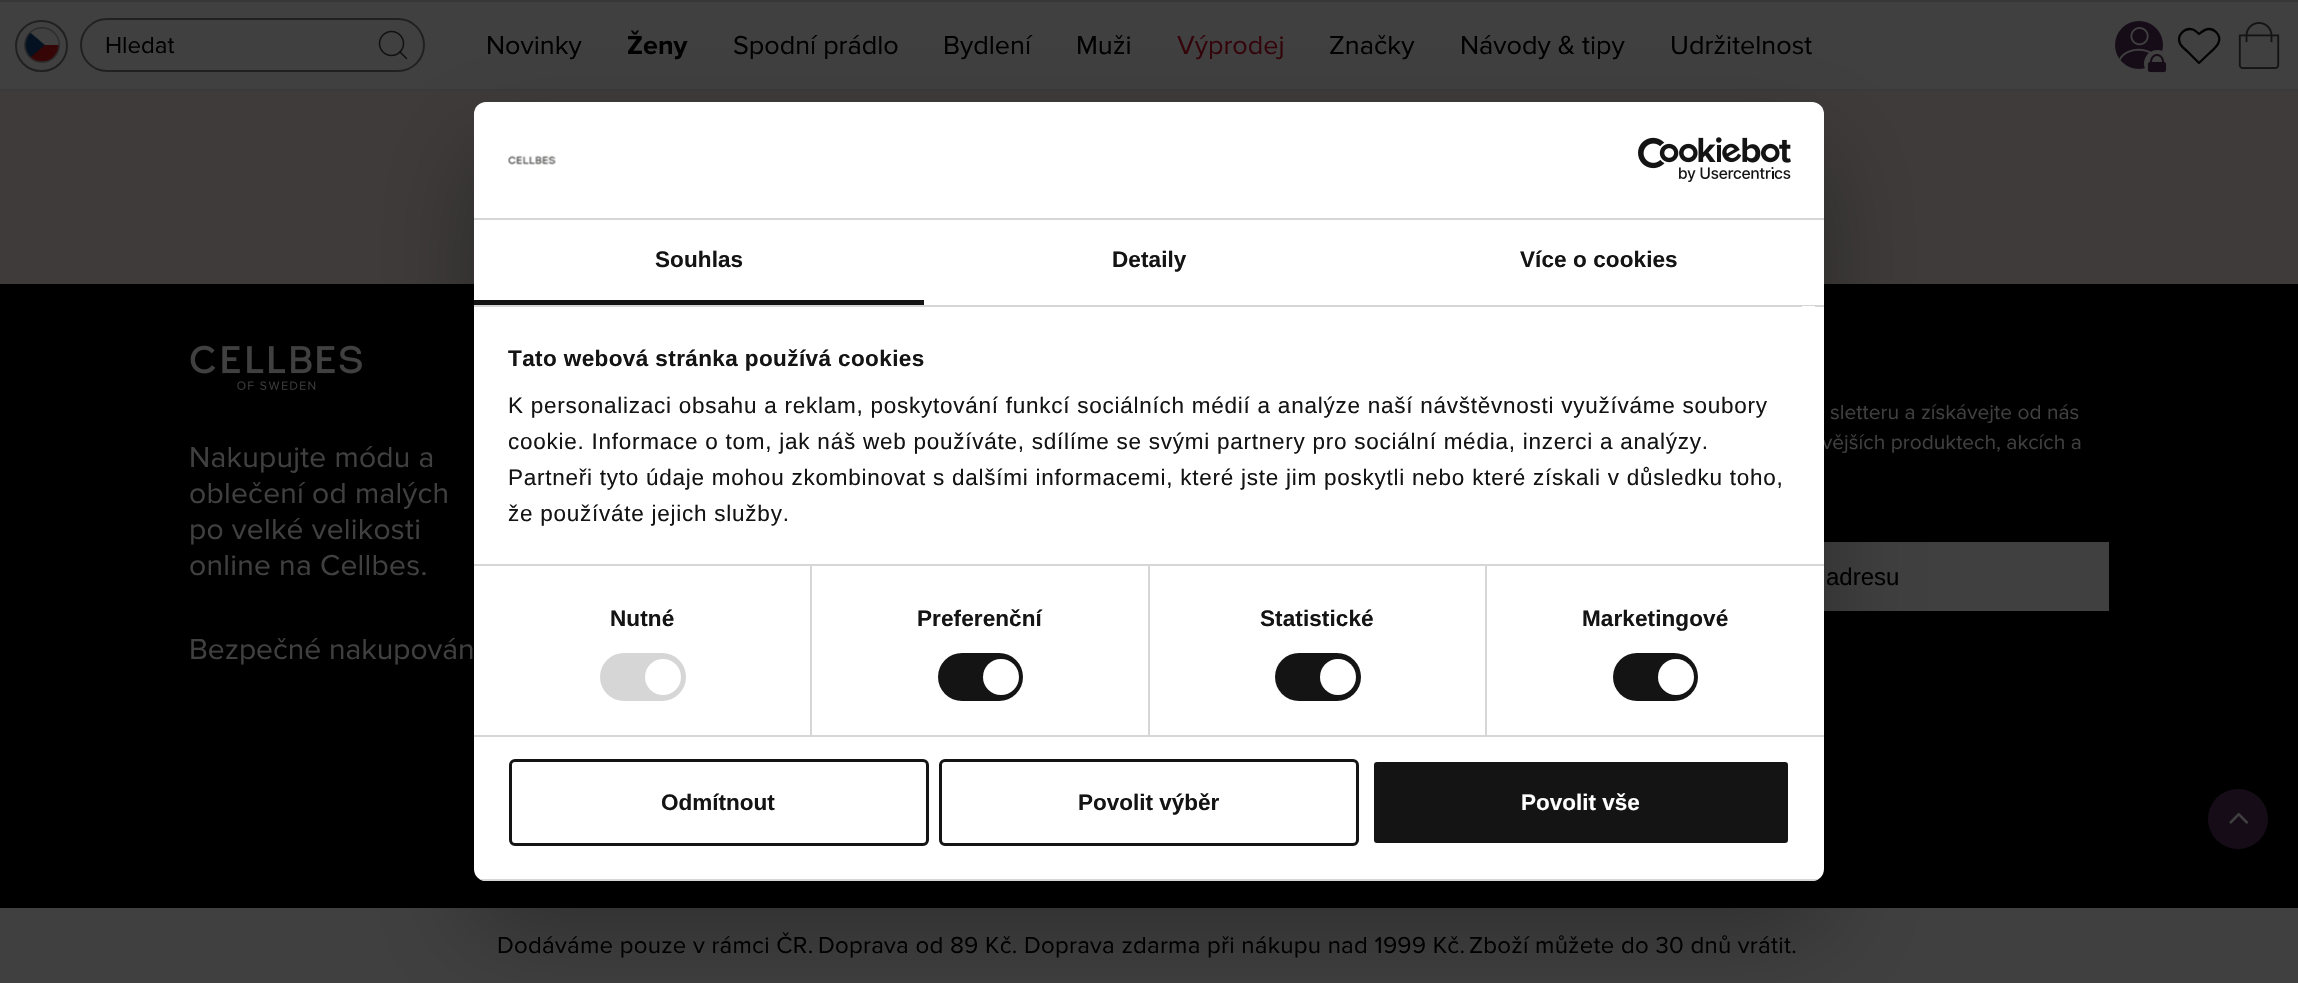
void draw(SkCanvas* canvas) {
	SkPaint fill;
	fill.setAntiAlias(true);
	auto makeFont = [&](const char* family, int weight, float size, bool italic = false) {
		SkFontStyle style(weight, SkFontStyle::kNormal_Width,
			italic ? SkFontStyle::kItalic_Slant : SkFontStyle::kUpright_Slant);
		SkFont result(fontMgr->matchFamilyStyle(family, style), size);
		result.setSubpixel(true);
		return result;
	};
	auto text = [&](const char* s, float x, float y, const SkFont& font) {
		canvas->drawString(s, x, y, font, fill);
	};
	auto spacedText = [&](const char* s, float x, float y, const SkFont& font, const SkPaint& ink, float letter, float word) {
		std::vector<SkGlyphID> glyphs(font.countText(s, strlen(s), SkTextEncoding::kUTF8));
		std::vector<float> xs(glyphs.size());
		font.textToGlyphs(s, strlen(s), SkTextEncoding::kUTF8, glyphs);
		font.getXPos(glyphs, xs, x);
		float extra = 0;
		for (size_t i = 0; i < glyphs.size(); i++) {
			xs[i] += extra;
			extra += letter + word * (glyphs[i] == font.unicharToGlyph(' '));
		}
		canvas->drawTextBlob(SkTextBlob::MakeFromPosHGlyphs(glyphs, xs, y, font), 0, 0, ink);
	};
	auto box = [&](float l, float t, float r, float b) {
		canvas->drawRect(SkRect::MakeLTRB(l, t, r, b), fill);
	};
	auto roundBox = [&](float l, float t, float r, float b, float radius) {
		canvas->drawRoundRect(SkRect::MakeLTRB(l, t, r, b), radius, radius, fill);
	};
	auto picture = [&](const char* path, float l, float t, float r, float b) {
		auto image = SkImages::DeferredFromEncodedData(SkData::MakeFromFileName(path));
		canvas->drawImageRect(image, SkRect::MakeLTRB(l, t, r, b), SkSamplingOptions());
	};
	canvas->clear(0xFF404040);
	fill.setColor(0xFF373737);
	box(0, 0, 2298, 2);
	fill.setStyle(SkPaint::kStroke_Style);
	fill.setStrokeWidth(2);
	fill.setColor(0xFF202020);
	canvas->drawRoundRect(SkRect::MakeLTRB(16, 21, 67, 71), 25, 25, fill);
	fill.setColor(0xFF2C2C2C);
	canvas->drawCircle(42, 45, 17, fill);
	picture("image0.png", 25, 28, 59, 62);
	fill.setColor(0xFF202020);
	canvas->drawRoundRect(SkRect::MakeLTRB(81, 19, 424, 71), 26, 26, fill);
	picture("image1.png", 378, 30, 408, 60);
	fill.setStyle(SkPaint::kFill_Style);
	fill.setColor(0xFF3A3A3A);
	box(0, 89, 2298, 91);
	fill.setColor(0xFF160C18);
	canvas->drawCircle(2139, 45, 24, fill);
	picture("image2.png", 2119, 27, 2151, 61);
	fill.setColor(0xFF404040);
	canvas->drawCircle(2157.5f, 63.5f, 13.5f, fill);
	picture("image3.png", 2147, 53, 2167, 73);
	fill.setStyle(SkPaint::kStroke_Style);
	fill.setStrokeWidth(2.3f);
	fill.setStrokeCap(SkPaint::kRound_Cap);
	fill.setStrokeJoin(SkPaint::kRound_Join);
	fill.setColor(0xFF030303);
	canvas->drawPath(SkPathBuilder().moveTo(2216, 32).cubicTo(2210.5f, 26.5f, 2204, 29.5f, 2199, 34).cubicTo(2197.5f, 32.5f, 2195.5f, 30.5f, 2193, 29.5f).cubicTo(2184.5f, 27, 2176.5f, 35.5f, 2180, 43.5f).cubicTo(2181.5f, 46.5f, 2184.5f, 49, 2187, 51).lineTo(2199, 63).lineTo(2209, 53.5f).cubicTo(2215, 48, 2224.5f, 40.5f, 2216, 32).close().detach(), fill);
	picture("image4.png", 2238, 22, 2280, 69);
	fill.setStyle(SkPaint::kFill_Style);
	fill.setColor(0xFF3E3B3A);
	box(0, 91, 2298, 284);
	fill.setColor(0xFF000000);
	box(0, 284, 2298, 908);
	picture("image5.png", 190, 345, 362, 390);
	fill.setColor(0xFF404040);
	box(1824, 542, 2109, 611);
	fill.setColor(0xFF160C18);
	canvas->drawCircle(2238, 819, 30, fill);
	picture("image6.png", 2229, 812, 2249, 824);
	fill.setColor(0x4D000000);
	fill.setMaskFilter(SkMaskFilter::MakeBlur(kNormal_SkBlurStyle, 51));
	canvas->drawRoundRect(SkRect::MakeLTRB(474, 150, 1824, 929), 12, 12, fill);
	fill.setMaskFilter(nullptr);
	auto font1 = makeFont("Proxima Nova", 400, 24);
	fill.setColor(0xFF000000);
	text("Hledat", 105, 53, font1);
	auto font2 = makeFont("Proxima Nova", 400, 27);
	text("Novinky", 486, 54, font2);
	auto font3 = makeFont("Proxima Nova", 700, 27);
	text("Ženy", 627, 54, font3);
	text("Spodní prádlo", 733, 54, font2);
	text("Bydlení", 943, 54, font2);
	text("Muži", 1076, 54, font2);
	fill.setColor(0xFF34040B);
	text("Výprodej", 1177, 54, font2);
	fill.setColor(0xFF000000);
	text("Značky", 1329, 54, font2);
	text("Návody & tipy", 1460, 54, font2);
	text("Udržitelnost", 1670, 54, font2);
	auto font4 = makeFont("Proxima Nova", 400, 30);
	fill.setColor(0xFF404040);
	spacedText("Nakupujte módu a", 189, 467, font4, fill, 0.25f, 0);
	spacedText("oblečení od malých", 189, 503, font4, fill, 0.25f, 0);
	spacedText("po velké velikosti", 189, 539, font4, fill, 0.25f, 0);
	spacedText("online na Cellbes.", 189, 575, font4, fill, 0.25f, 0);
	text("Bezpečné nakupován", 189, 659, font4);
	auto font5 = makeFont("Proxima Nova", 400, 21);
	text("sletteru a získávejte od nás", 1830, 419, font5);
	text("vějších produktech, akcích a", 1822, 449, font5);
	auto font6 = makeFont("Liberation Sans", 400, 24);
	fill.setColor(0xFF000000);
	text("adresu", 1826, 585, font6);
	spacedText("Dodáváme pouze v rámci ČR.", 497, 953, font1, fill, 0.25f, 0);
	spacedText("Doprava od 89 Kč. Doprava zdarma při nákupu nad 1999 Kč.", 818, 953, font1, fill, 0.25f, 0);
	spacedText("Zboží můžete do 30 dnů vrátit.", 1469, 953, font1, fill, 0.25f, 0);
	fill.setColor(0xFFFFFFFF);
	roundBox(474, 102, 1824, 881, 12);
	fill.setColor(0xFFD6D6D6);
	box(474, 218, 1824, 220);
	picture("image7.png", 508, 155, 556, 165);
	picture("image8.png", 1638, 137, 1791, 182);
	box(474, 305, 1824, 307);
	fill.setColor(0xFF141414);
	box(474, 300, 924, 305);
	auto font7 = makeFont("Liberation Sans", 700, 22.5f);
	spacedText("Souhlas", 655, 267, font7, fill, 0.1f, 0);
	spacedText("Detaily", 1112, 267, font7, fill, 0.1f, 0);
	spacedText("Více o cookies", 1520, 267, font7, fill, 0.1f, 0);
	fill.setColor(0xFFD6D6D6);
	box(474, 564, 1824, 566);
	fill.setColor(0xFFFFFFFF);
	box(1802, 306, 1815, 307);
	fill.setColor(0xFF141414);
	spacedText("Tato webová stránka používá cookies", 508, 366, font7, fill, 0.4f, 0);
	auto font8 = makeFont("Liberation Sans", 400, 22.5f);
	spacedText("K personalizaci obsahu a reklam, poskytování funkcí sociálních médií a analýze naší návštěvnosti využíváme soubory", 508, 413, font8, fill, 0.75f, 0);
	spacedText("cookie. Informace o tom, jak náš web používáte, sdílíme se svými partnery pro sociální média, inzerci a analýzy.", 508, 449, font8, fill, 0.75f, 0);
	spacedText("Partneři tyto údaje mohou zkombinovat s dalšími informacemi, které jste jim poskytli nebo které získali v důsledku toho,", 508, 485, font8, fill, 0.75f, 0);
	spacedText("že používáte jejich služby.", 508, 521, font8, fill, 0.75f, 0);
	fill.setColor(0xFFD6D6D6);
	box(474, 735, 1824, 737);
	box(810, 566, 812, 735);
	fill.setColor(0xFF141414);
	spacedText("Nutné", 610, 626, font7, fill, 0.1f, 0);
	fill.setColor(0xFFD6D6D6);
	roundBox(600, 653, 686, 701, 24);
	fill.setColor(0xFFFFFFFF);
	canvas->drawCircle(663, 677, 18, fill);
	fill.setColor(0xFFD6D6D6);
	box(1148, 566, 1150, 735);
	fill.setColor(0xFF141414);
	spacedText("Preferenční", 917, 626, font7, fill, 0.1f, 0);
	roundBox(938, 653, 1023, 701, 24);
	fill.setColor(0xFFFFFFFF);
	canvas->drawCircle(1001, 677, 18, fill);
	fill.setColor(0xFFD6D6D6);
	box(1485, 566, 1487, 735);
	fill.setColor(0xFF141414);
	spacedText("Statistické", 1260, 626, font7, fill, 0.1f, 0);
	roundBox(1275, 653, 1361, 701, 24);
	fill.setColor(0xFFFFFFFF);
	canvas->drawCircle(1338, 677, 18, fill);
	fill.setColor(0xFF141414);
	spacedText("Marketingové", 1582, 626, font7, fill, 0.1f, 0);
	roundBox(1613, 653, 1698, 701, 24);
	fill.setColor(0xFFFFFFFF);
	canvas->drawCircle(1676, 677, 18, fill);
	canvas->save();
	canvas->clipPath(SkPathBuilder().moveTo(486, 102).lineTo(1812, 102).cubicTo(1818.5f, 102, 1824, 107.5f, 1824, 114).lineTo(1824, 869).cubicTo(1824, 875.5f, 1818.5f, 881, 1812, 881).lineTo(486, 881).cubicTo(479.5f, 881, 474, 875.5f, 474, 869).lineTo(474, 114).cubicTo(474, 107.5f, 479.5f, 102, 486, 102).close().detach(), true);
	fill.setColor(0xFFD6D6D6);
	box(474, 879, 1824, 881);
	canvas->restore();
	fill.setStyle(SkPaint::kStroke_Style);
	fill.setStrokeWidth(3);
	fill.setStrokeCap(SkPaint::kButt_Cap);
	fill.setStrokeJoin(SkPaint::kMiter_Join);
	fill.setColor(0xFF141414);
	canvas->drawRoundRect(SkRect::MakeLTRB(510.5f, 760.5f, 927.5f, 844.5f), 4.5f, 4.5f, fill);
	fill.setStyle(SkPaint::kFill_Style);
	text("Odmítnout", 661, 810, font7);
	fill.setStyle(SkPaint::kStroke_Style);
	canvas->drawRoundRect(SkRect::MakeLTRB(940.5f, 760.5f, 1357.5f, 844.5f), 4.5f, 4.5f, fill);
	fill.setStyle(SkPaint::kFill_Style);
	text("Povolit výběr", 1078, 810, font7);
	canvas->drawRoundRect(SkRect::MakeLTRB(1372.5f, 760.5f, 1789.5f, 844.5f), 4.5f, 4.5f, fill);
	fill.setStyle(SkPaint::kStroke_Style);
	fill.setColor(0xFFFFFFFF);
	canvas->drawRoundRect(SkRect::MakeLTRB(1372.5f, 760.5f, 1789.5f, 844.5f), 4.5f, 4.5f, fill);
	fill.setStyle(SkPaint::kFill_Style);
	text("Povolit vše", 1521, 810, font7);
}
